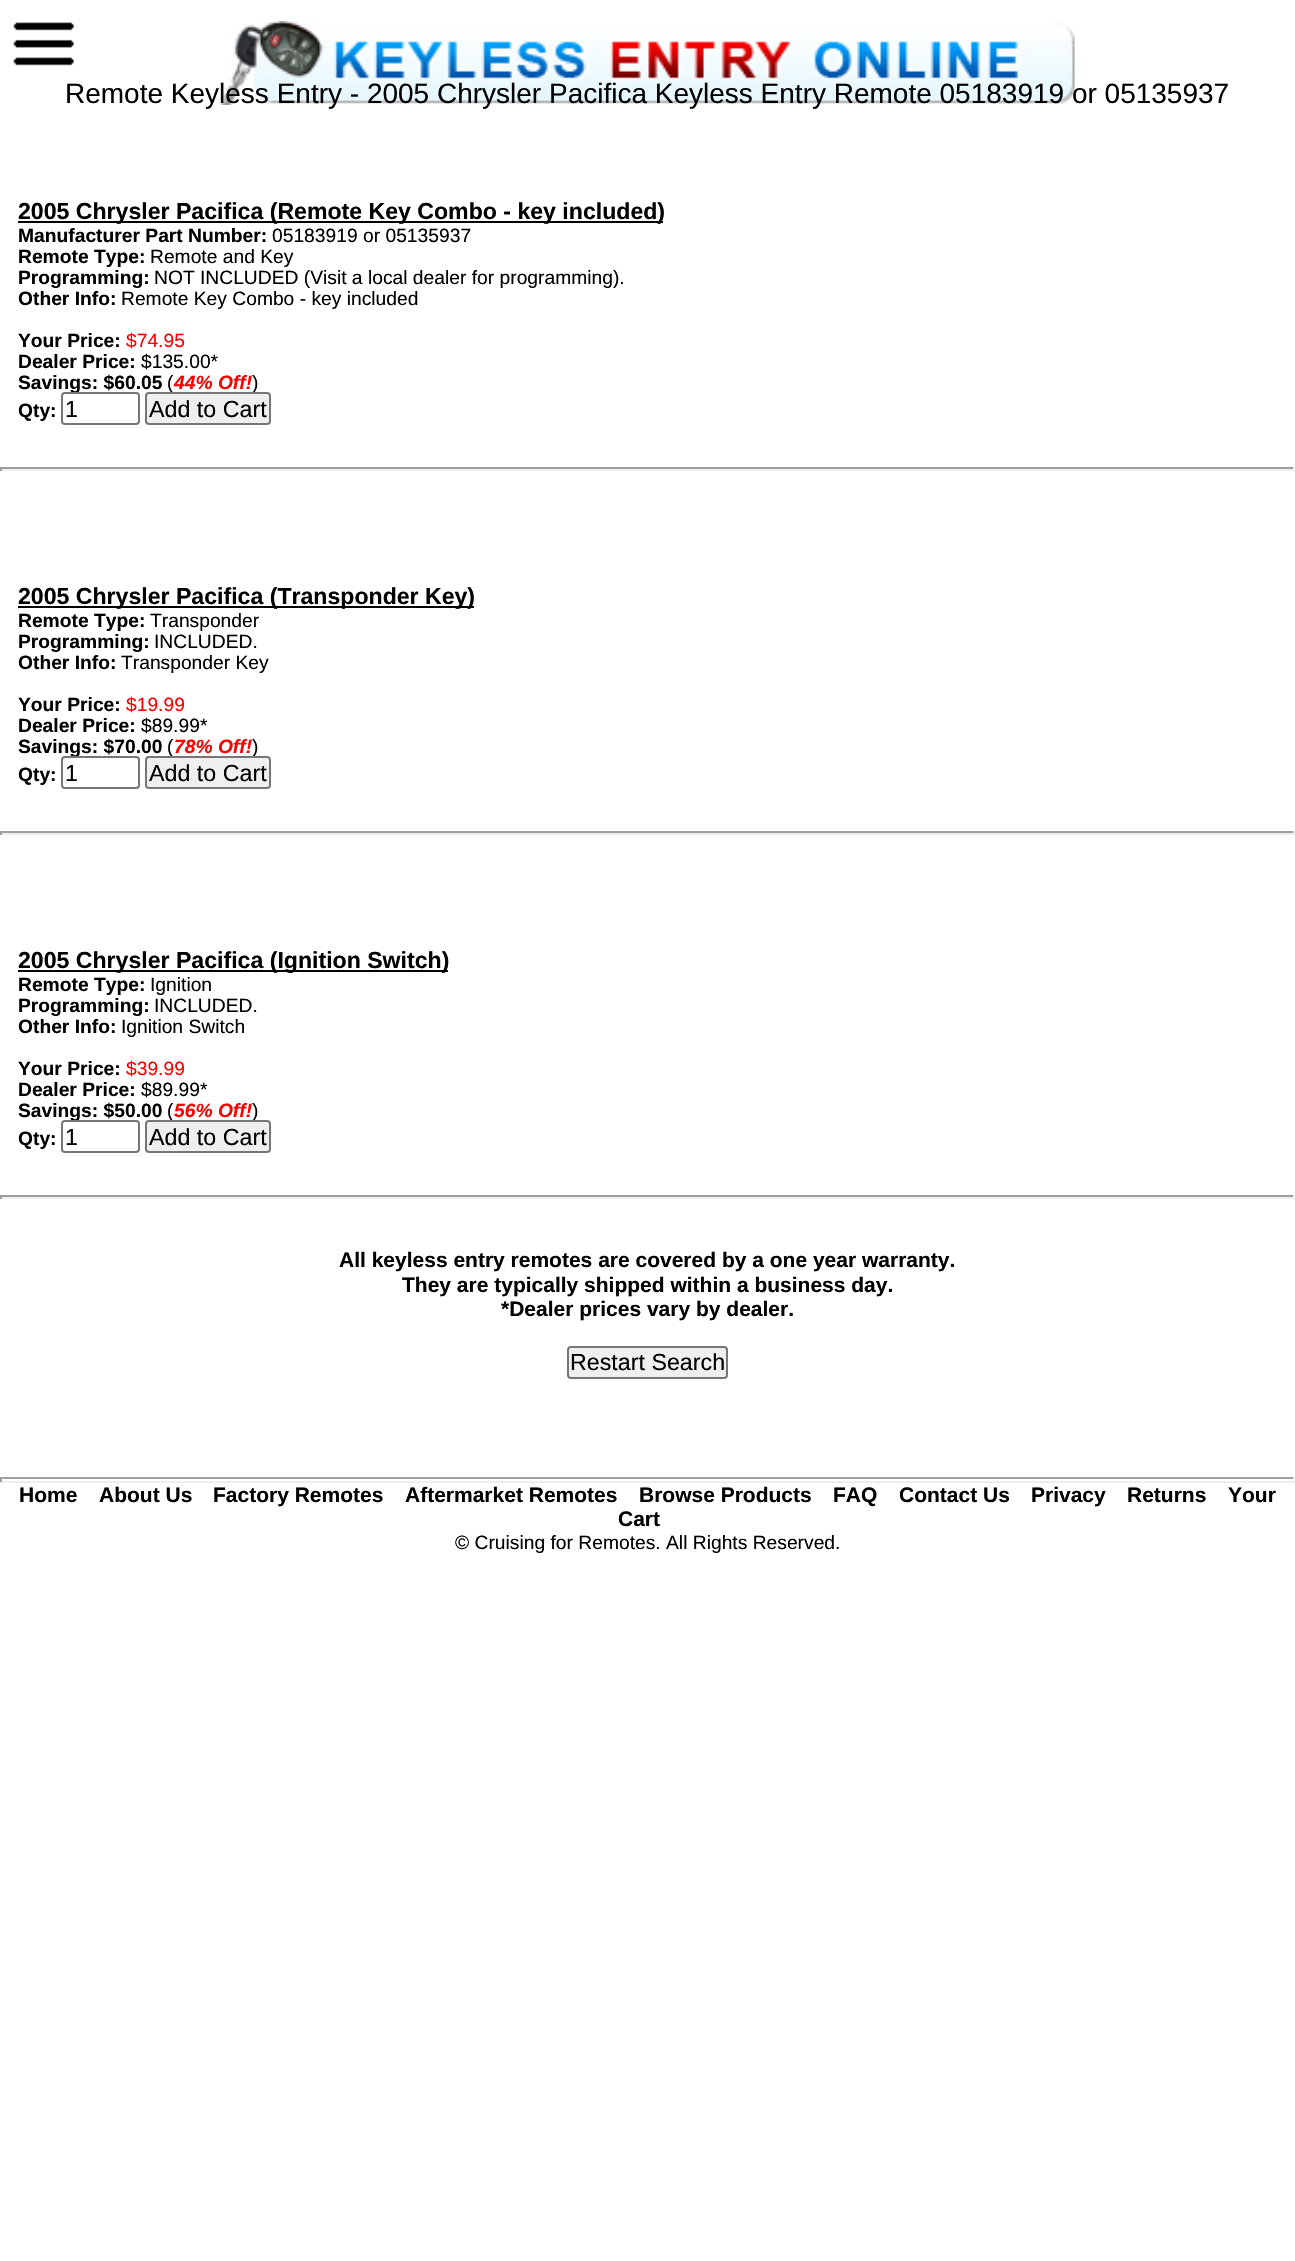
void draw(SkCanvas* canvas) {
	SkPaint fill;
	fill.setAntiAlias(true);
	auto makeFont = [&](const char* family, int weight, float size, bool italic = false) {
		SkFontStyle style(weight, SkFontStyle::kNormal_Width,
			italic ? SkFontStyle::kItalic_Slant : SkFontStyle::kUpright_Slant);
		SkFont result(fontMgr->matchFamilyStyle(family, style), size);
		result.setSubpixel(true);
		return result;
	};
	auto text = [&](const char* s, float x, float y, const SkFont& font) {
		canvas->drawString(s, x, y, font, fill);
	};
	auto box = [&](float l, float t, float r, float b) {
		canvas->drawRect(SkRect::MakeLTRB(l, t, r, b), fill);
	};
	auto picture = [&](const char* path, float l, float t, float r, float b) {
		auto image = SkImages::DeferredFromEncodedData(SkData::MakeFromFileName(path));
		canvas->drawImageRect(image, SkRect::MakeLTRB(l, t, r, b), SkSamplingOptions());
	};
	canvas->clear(0xFFFFFFFF);
	picture("image0.png", 13, 22, 74, 66);
	picture("image1.png", 220, 21, 1075, 105);
	fill.setColor(0xFF000000);
	box(18, 221, 663, 223);
	fill.setColor(0xFF9F9F9F);
	box(0, 467, 1295, 469);
	fill.setColor(0xFFEEEEEE);
	box(1293, 467, 1295, 471);
	box(0, 469, 1295, 471);
	fill.setColor(0xFF9F9F9F);
	box(0, 467, 2, 471);
	fill.setColor(0xFF000000);
	box(18, 606, 474, 608);
	fill.setColor(0xFF9F9F9F);
	box(0, 831, 1295, 833);
	fill.setColor(0xFFEEEEEE);
	box(1293, 831, 1295, 835);
	box(0, 833, 1295, 835);
	fill.setColor(0xFF9F9F9F);
	box(0, 831, 2, 835);
	fill.setColor(0xFF000000);
	box(18, 970, 448, 972);
	fill.setColor(0xFF9F9F9F);
	box(0, 1195, 1295, 1197);
	fill.setColor(0xFFEEEEEE);
	box(1293, 1195, 1295, 1199);
	box(0, 1197, 1295, 1199);
	fill.setColor(0xFF9F9F9F);
	box(0, 1195, 2, 1199);
	fill.setColor(0xFFEFEFEF);
	canvas->drawRoundRect(SkRect::MakeLTRB(568, 1347, 727, 1378), 3, 3, fill);
	fill.setStyle(SkPaint::kStroke_Style);
	fill.setStrokeWidth(2);
	fill.setColor(0xFF767676);
	canvas->drawRoundRect(SkRect::MakeLTRB(568, 1347, 727, 1378), 3, 3, fill);
	fill.setStyle(SkPaint::kFill_Style);
	fill.setColor(0xFF9F9F9F);
	box(0, 1477, 1295, 1479);
	fill.setColor(0xFFEEEEEE);
	box(1293, 1477, 1295, 1482);
	box(0, 1481, 1295, 1483);
	fill.setColor(0xFF9F9F9F);
	box(0, 1477, 2, 1482);
	auto font1 = makeFont("Liberation Sans", 400, 28);
	fill.setColor(0xFF000000);
	text("Remote Keyless Entry - 2005 Chrysler Pacifica Keyless Entry Remote 05183919 or 05135937", 65, 103, font1);
	auto font2 = makeFont("Liberation Sans", 700, 23.1f);
	text("2005 Chrysler Pacifica (Remote Key Combo - key included)", 18, 219, font2);
	auto font3 = makeFont("Liberation Sans", 700, 19.25f);
	text("Manufacturer Part Number:", 18, 242, font3);
	auto font4 = makeFont("Liberation Sans", 400, 19.25f);
	text("05183919 or 05135937", 272, 242, font4);
	text("Remote Type:", 18, 263, font3);
	text("Remote and Key", 150, 263, font4);
	text("Programming:", 18, 284, font3);
	text("NOT INCLUDED (Visit a local dealer for programming).", 154, 284, font4);
	text("Other Info:", 18, 305, font3);
	text("Remote Key Combo - key included", 121, 305, font4);
	text("Your Price:", 18, 347, font3);
	fill.setColor(0xFFFF0000);
	text("$74.95", 126, 347, font4);
	fill.setColor(0xFF000000);
	text("Dealer Price:", 18, 368, font3);
	text("$135.00*", 141, 368, font4);
	text("Savings: $60.05", 18, 389, font3);
	text("(", 167, 389, font4);
	auto font5 = makeFont("Liberation Sans", 700, 19.25f, true);
	fill.setColor(0xFFFF0000);
	text("44% Off!", 174, 389, font5);
	fill.setColor(0xFF000000);
	text(")", 252, 389, font4);
	text("Qty:", 18, 417, font3);
	fill.setColor(0xFFFFFFFF);
	canvas->drawRoundRect(SkRect::MakeLTRB(62, 393, 139, 424), 3, 3, fill);
	fill.setStyle(SkPaint::kStroke_Style);
	fill.setColor(0xFF767676);
	canvas->drawRoundRect(SkRect::MakeLTRB(62, 393, 139, 424), 3, 3, fill);
	auto font6 = makeFont("Liberation Sans", 400, 23.25f);
	fill.setStyle(SkPaint::kFill_Style);
	fill.setColor(0xFF000000);
	text("1", 65, 417, font6);
	fill.setColor(0xFFEFEFEF);
	canvas->drawRoundRect(SkRect::MakeLTRB(146, 393, 270, 424), 3, 3, fill);
	fill.setStyle(SkPaint::kStroke_Style);
	fill.setColor(0xFF767676);
	canvas->drawRoundRect(SkRect::MakeLTRB(146, 393, 270, 424), 3, 3, fill);
	fill.setStyle(SkPaint::kFill_Style);
	fill.setColor(0xFF000000);
	text("Add to Cart", 149, 417, font6);
	text("2005 Chrysler Pacifica (Transponder Key)", 18, 604, font2);
	text("Remote Type:", 18, 627, font3);
	text("Transponder", 150, 627, font4);
	text("Programming:", 18, 648, font3);
	text("INCLUDED.", 154, 648, font4);
	text("Other Info:", 18, 669, font3);
	text("Transponder Key", 121, 669, font4);
	text("Your Price:", 18, 711, font3);
	fill.setColor(0xFFFF0000);
	text("$19.99", 126, 711, font4);
	fill.setColor(0xFF000000);
	text("Dealer Price:", 18, 732, font3);
	text("$89.99*", 141, 732, font4);
	text("Savings: $70.00", 18, 753, font3);
	text("(", 167, 753, font4);
	fill.setColor(0xFFFF0000);
	text("78% Off!", 174, 753, font5);
	fill.setColor(0xFF000000);
	text(")", 252, 753, font4);
	text("Qty:", 18, 781, font3);
	fill.setColor(0xFFFFFFFF);
	canvas->drawRoundRect(SkRect::MakeLTRB(62, 757, 139, 788), 3, 3, fill);
	fill.setStyle(SkPaint::kStroke_Style);
	fill.setColor(0xFF767676);
	canvas->drawRoundRect(SkRect::MakeLTRB(62, 757, 139, 788), 3, 3, fill);
	fill.setStyle(SkPaint::kFill_Style);
	fill.setColor(0xFF000000);
	text("1", 65, 781, font6);
	fill.setColor(0xFFEFEFEF);
	canvas->drawRoundRect(SkRect::MakeLTRB(146, 757, 270, 788), 3, 3, fill);
	fill.setStyle(SkPaint::kStroke_Style);
	fill.setColor(0xFF767676);
	canvas->drawRoundRect(SkRect::MakeLTRB(146, 757, 270, 788), 3, 3, fill);
	fill.setStyle(SkPaint::kFill_Style);
	fill.setColor(0xFF000000);
	text("Add to Cart", 149, 781, font6);
	text("2005 Chrysler Pacifica (Ignition Switch)", 18, 968, font2);
	text("Remote Type:", 18, 991, font3);
	text("Ignition", 150, 991, font4);
	text("Programming:", 18, 1012, font3);
	text("INCLUDED.", 154, 1012, font4);
	text("Other Info:", 18, 1033, font3);
	text("Ignition Switch", 121, 1033, font4);
	text("Your Price:", 18, 1075, font3);
	fill.setColor(0xFFFF0000);
	text("$39.99", 126, 1075, font4);
	fill.setColor(0xFF000000);
	text("Dealer Price:", 18, 1096, font3);
	text("$89.99*", 141, 1096, font4);
	text("Savings: $50.00", 18, 1117, font3);
	text("(", 167, 1117, font4);
	fill.setColor(0xFFFF0000);
	text("56% Off!", 174, 1117, font5);
	fill.setColor(0xFF000000);
	text(")", 252, 1117, font4);
	text("Qty:", 18, 1145, font3);
	fill.setColor(0xFFFFFFFF);
	canvas->drawRoundRect(SkRect::MakeLTRB(62, 1121, 139, 1152), 3, 3, fill);
	fill.setStyle(SkPaint::kStroke_Style);
	fill.setColor(0xFF767676);
	canvas->drawRoundRect(SkRect::MakeLTRB(62, 1121, 139, 1152), 3, 3, fill);
	fill.setStyle(SkPaint::kFill_Style);
	fill.setColor(0xFF000000);
	text("1", 65, 1145, font6);
	fill.setColor(0xFFEFEFEF);
	canvas->drawRoundRect(SkRect::MakeLTRB(146, 1121, 270, 1152), 3, 3, fill);
	fill.setStyle(SkPaint::kStroke_Style);
	fill.setColor(0xFF767676);
	canvas->drawRoundRect(SkRect::MakeLTRB(146, 1121, 270, 1152), 3, 3, fill);
	fill.setStyle(SkPaint::kFill_Style);
	fill.setColor(0xFF000000);
	text("Add to Cart", 149, 1145, font6);
	auto font7 = makeFont("Liberation Sans", 700, 21);
	text("All keyless entry remotes are covered by a one year warranty.", 339, 1267, font7);
	text("They are typically shipped within a business day.", 402, 1292, font7);
	text("*Dealer prices vary by dealer.", 501, 1316, font7);
	text("Restart Search", 570, 1370, font6);
	text("Home", 19, 1502, font7);
	text("About Us", 99, 1502, font7);
	text("Factory Remotes", 213, 1502, font7);
	text("Aftermarket Remotes", 405, 1502, font7);
	text("Browse Products", 639, 1502, font7);
	text("FAQ", 833, 1502, font7);
	text("Contact Us", 899, 1502, font7);
	text("Privacy", 1031, 1502, font7);
	text("Returns", 1127, 1502, font7);
	text("Your", 1228, 1502, font7);
	text("Cart", 618, 1526, font7);
	text("© Cruising for Remotes. All Rights Reserved.", 455, 1549, font4);
}
